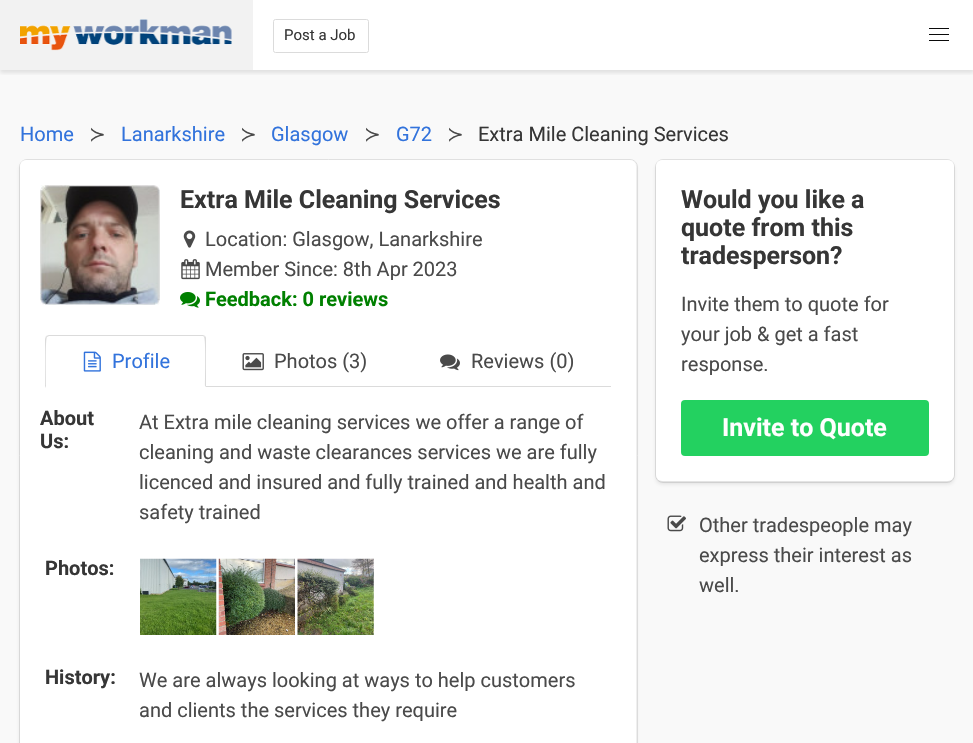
void draw(SkCanvas* canvas) {
	SkPaint fill;
	fill.setAntiAlias(true);
	auto makeFont = [&](const char* family, int weight, float size, bool italic = false) {
		SkFontStyle style(weight, SkFontStyle::kNormal_Width,
			italic ? SkFontStyle::kItalic_Slant : SkFontStyle::kUpright_Slant);
		SkFont result(fontMgr->matchFamilyStyle(family, style), size);
		result.setSubpixel(true);
		return result;
	};
	auto text = [&](const char* s, float x, float y, const SkFont& font) {
		canvas->drawString(s, x, y, font, fill);
	};
	auto box = [&](float l, float t, float r, float b) {
		canvas->drawRect(SkRect::MakeLTRB(l, t, r, b), fill);
	};
	auto roundBox = [&](float l, float t, float r, float b, float radius) {
		canvas->drawRoundRect(SkRect::MakeLTRB(l, t, r, b), radius, radius, fill);
	};
	auto picture = [&](const char* path, float l, float t, float r, float b) {
		auto image = SkImages::DeferredFromEncodedData(SkData::MakeFromFileName(path));
		canvas->drawImageRect(image, SkRect::MakeLTRB(l, t, r, b), SkSamplingOptions());
	};
	canvas->clear(0xFFFFFFFF);
	fill.setColor(0xFFF9F9F9);
	box(0, 70, 973, 743);
	canvas->save();
	canvas->clipRect(SkRect::MakeLTRB(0, 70, 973, 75));
	fill.setColor(0x1A0A0A0A);
	fill.setMaskFilter(SkMaskFilter::MakeBlur(kNormal_SkBlurStyle, 2));
	canvas->drawRect(SkRect::MakeLTRB(0, 3, 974, 73), fill);
	fill.setMaskFilter(nullptr);
	canvas->restore();
	fill.setColor(0xFFF2F2F2);
	box(0, 0, 253, 70);
	picture("image0.png", 20, 19, 232, 51);
	fill.setStyle(SkPaint::kStroke_Style);
	fill.setStrokeWidth(1);
	fill.setColor(0xFFDBDBDB);
	canvas->drawRoundRect(SkRect::MakeLTRB(273.5f, 19.5f, 368.5f, 52.5f), 2, 2, fill);
	fill.setStyle(SkPaint::kFill_Style);
	fill.setColor(0xFF0A0A0A);
	box(929, 28, 949, 29);
	box(929, 34, 949, 35);
	box(929, 40, 949, 41);
	fill.setStyle(SkPaint::kStroke_Style);
	fill.setColor(0xFFE1E1E1);
	canvas->drawRoundRect(SkRect::MakeLTRB(19.5f, 159.5f, 637.5f, 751.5f), 7.5f, 7.5f, fill);
	fill.setStyle(SkPaint::kFill_Style);
	fill.setColor(0x1A0A0A0A);
	fill.setMaskFilter(SkMaskFilter::MakeBlur(kNormal_SkBlurStyle, 2));
	canvas->drawRoundRect(SkRect::MakeLTRB(20, 163, 636, 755), 6, 6, fill);
	fill.setMaskFilter(nullptr);
	fill.setColor(0xFFFFFFFF);
	roundBox(20, 160, 636, 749, 6);
	picture("image1.png", 40, 185, 160, 305);
	picture("image2.png", 183, 230, 196, 248);
	picture("image3.png", 181, 259, 200, 280);
	picture("image4.png", 180, 292, 200, 308);
	fill.setColor(0xFFDBDBDB);
	box(206, 386, 611, 387);
	canvas->drawPath(SkPathBuilder().moveTo(49, 335).lineTo(46, 336).lineTo(47, 337).lineTo(49, 336).lineTo(202, 336).cubicTo(203, 336, 204, 336, 204, 337).lineTo(205, 336).cubicTo(204, 335, 203, 335, 202, 335).close().detach(), fill);
	canvas->drawPath(SkPathBuilder().moveTo(205, 336).cubicTo(206, 337, 206, 338, 206, 339).lineTo(206, 387).lineTo(205, 386).cubicTo(205, 380, 206, 339, 204, 337).close().detach(), fill);
	canvas->drawPath(SkPathBuilder().moveTo(45, 388).lineTo(46, 386).cubicTo(46, 380, 45, 339, 47, 337).lineTo(46, 336).lineTo(45, 339).close().detach(), fill);
	picture("image5.png", 83, 351, 101, 372);
	picture("image6.png", 242, 353, 264, 371);
	picture("image7.png", 440, 354, 460, 371);
	picture("image8.png", 140, 558, 217, 635);
	picture("image9.png", 218, 558, 295, 635);
	picture("image10.png", 297, 558, 374, 635);
	fill.setStyle(SkPaint::kStroke_Style);
	fill.setColor(0xFFE1E1E1);
	canvas->drawRoundRect(SkRect::MakeLTRB(655.5f, 159.5f, 954.5f, 482.5f), 7.5f, 7.5f, fill);
	fill.setStyle(SkPaint::kFill_Style);
	fill.setColor(0x1A0A0A0A);
	fill.setMaskFilter(SkMaskFilter::MakeBlur(kNormal_SkBlurStyle, 2));
	canvas->drawRoundRect(SkRect::MakeLTRB(656, 163, 954, 484), 6, 6, fill);
	fill.setMaskFilter(nullptr);
	fill.setColor(0xFFFFFFFF);
	roundBox(656, 160, 954, 481, 6);
	fill.setColor(0xFF23D160);
	roundBox(681, 400, 929, 456, 4);
	picture("image11.png", 667, 515, 686, 532);
	auto font1 = makeFont("Roboto", 400, 15);
	fill.setColor(0xFF363636);
	text("Post a Job", 284, 40, font1);
	auto font2 = makeFont("Roboto", 400, 20);
	fill.setColor(0xFF3273DC);
	text("Home", 20, 141, font2);
	auto font3 = makeFont("DejaVu Sans", 400, 20);
	fill.setColor(0xFF4A4A4A);
	text("≻", 89, 141, font3);
	fill.setColor(0xFF3273DC);
	text("Lanarkshire", 121, 141, font2);
	fill.setColor(0xFF4A4A4A);
	text("≻", 240, 141, font3);
	fill.setColor(0xFF3273DC);
	text("Glasgow", 271, 141, font2);
	fill.setColor(0xFF4A4A4A);
	text("≻", 364, 141, font3);
	fill.setColor(0xFF3273DC);
	text("G72", 396, 141, font2);
	fill.setColor(0xFF4A4A4A);
	text("≻", 447, 141, font3);
	fill.setColor(0xFF363636);
	text("Extra Mile Cleaning Services", 478, 141, font2);
	auto font4 = makeFont("Roboto", 700, 25);
	text("Extra Mile Cleaning Services", 180, 208, font4);
	fill.setColor(0xFF4A4A4A);
	text("Location: Glasgow, Lanarkshire", 205, 246, font2);
	text("Member Since: 8th Apr 2023", 205, 276, font2);
	auto font5 = makeFont("Roboto", 700, 20);
	fill.setColor(0xFF008000);
	text("Feedback: 0 reviews", 205, 306, font5);
	fill.setColor(0xFF3273DC);
	text("Profile", 112, 368, font2);
	fill.setColor(0xFF4A4A4A);
	text("Photos (3)", 274, 368, font2);
	text("Reviews (0)", 471, 368, font2);
	fill.setColor(0xFF363636);
	text("About", 40, 425, font5);
	text("Us:", 40, 448, font5);
	fill.setColor(0xFF4A4A4A);
	text("At Extra mile cleaning services we offer a range of", 139, 429, font2);
	text("cleaning and waste clearances services we are fully", 139, 459, font2);
	text("licenced and insured and fully trained and health and", 139, 489, font2);
	text("safety trained", 139, 519, font2);
	fill.setColor(0xFF363636);
	text("Photos:", 45, 575, font5);
	text("History:", 45, 684, font5);
	fill.setColor(0xFF4A4A4A);
	text("We are always looking at ways to help customers", 139, 687, font2);
	text("and clients the services they require", 139, 717, font2);
	fill.setColor(0xFF363636);
	text("Would you like a", 681, 208, font4);
	text("quote from this", 681, 236, font4);
	text("tradesperson?", 681, 264, font4);
	fill.setColor(0xFF4A4A4A);
	text("Invite them to quote for", 681, 311, font2);
	text("your job & get a fast", 681, 341, font2);
	text("response.", 681, 371, font2);
	fill.setColor(0xFFFFFFFF);
	text("Invite to Quote", 722, 436, font4);
	fill.setColor(0xFF4A4A4A);
	text("Other tradespeople may", 699, 532, font2);
	text("express their interest as", 699, 562, font2);
	text("well.", 699, 592, font2);
}
